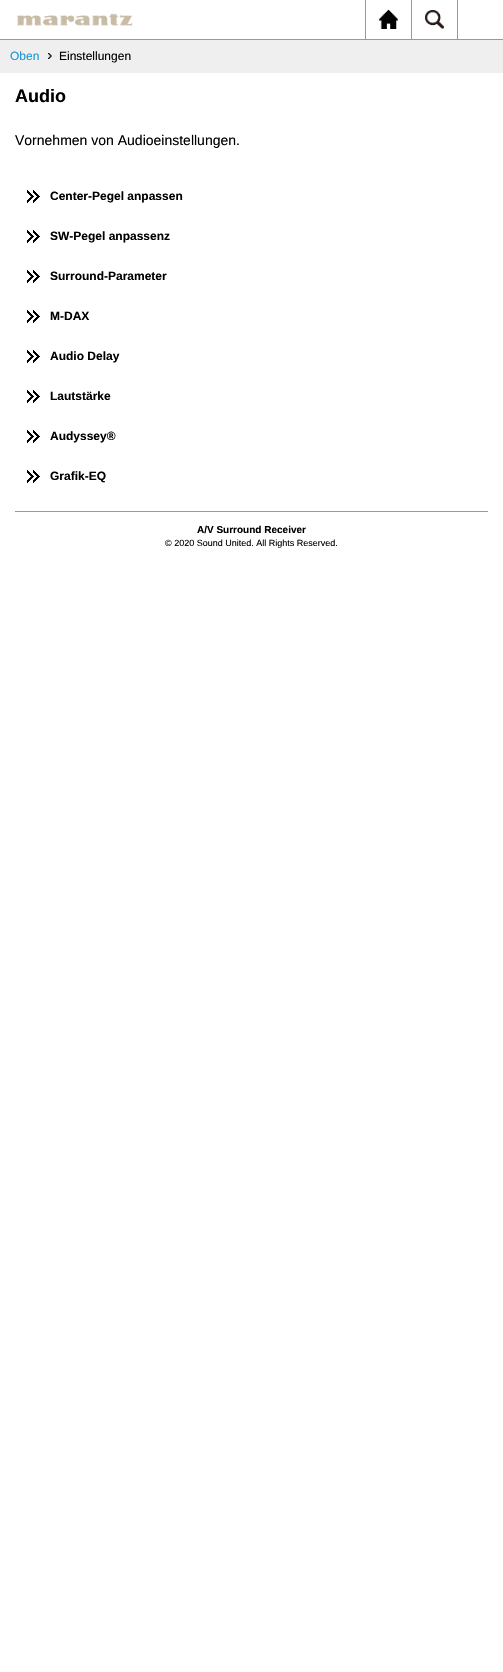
void draw(SkCanvas* canvas) {
	SkPaint fill;
	fill.setAntiAlias(true);
	auto makeFont = [&](const char* family, int weight, float size, bool italic = false) {
		SkFontStyle style(weight, SkFontStyle::kNormal_Width,
			italic ? SkFontStyle::kItalic_Slant : SkFontStyle::kUpright_Slant);
		SkFont result(fontMgr->matchFamilyStyle(family, style), size);
		result.setSubpixel(true);
		return result;
	};
	auto text = [&](const char* s, float x, float y, const SkFont& font) {
		canvas->drawString(s, x, y, font, fill);
	};
	auto box = [&](float l, float t, float r, float b) {
		canvas->drawRect(SkRect::MakeLTRB(l, t, r, b), fill);
	};
	auto picture = [&](const char* path, float l, float t, float r, float b) {
		auto image = SkImages::DeferredFromEncodedData(SkData::MakeFromFileName(path));
		canvas->drawImageRect(image, SkRect::MakeLTRB(l, t, r, b), SkSamplingOptions());
	};
	canvas->clear(0xFFFFFFFF);
	picture("image0.png", 17, 13, 133, 27);
	picture("image1.png", 379, 10, 398, 29);
	fill.setColor(0xFFAF976B);
	box(365, 0, 366, 39);
	picture("image2.png", 425, 10, 444, 29);
	box(411, 0, 412, 39);
	box(457, 0, 458, 39);
	fill.setColor(0xFFEFEFEF);
	box(0, 40, 503, 73);
	fill.setColor(0xFFAF976B);
	box(0, 39, 503, 40);
	picture("image3.png", 48, 53, 52, 59);
	picture("image4.png", 27, 190, 40, 203);
	picture("image4.png", 27, 230, 40, 243);
	picture("image4.png", 27, 270, 40, 283);
	picture("image4.png", 27, 310, 40, 323);
	picture("image4.png", 27, 350, 40, 363);
	picture("image4.png", 27, 390, 40, 403);
	picture("image4.png", 27, 430, 40, 443);
	picture("image4.png", 27, 470, 40, 483);
	fill.setColor(0xFF999999);
	box(15, 511, 488, 512);
	auto font1 = makeFont("Liberation Sans", 400, 12);
	fill.setColor(0xFF1D95D4);
	text("Oben", 10, 60, font1);
	fill.setColor(0xFF000000);
	text("Einstellungen", 59, 60, font1);
	auto font2 = makeFont("Liberation Sans", 700, 18);
	text("Audio", 15, 102, font2);
	auto font3 = makeFont("Liberation Sans", 400, 14);
	text("Vornehmen von Audioeinstellungen.", 15, 145, font3);
	auto font4 = makeFont("Liberation Sans", 700, 12);
	text("Center-Pegel anpassen", 50, 200, font4);
	text("SW-Pegel anpassenz", 50, 240, font4);
	text("Surround-Parameter", 50, 280, font4);
	text("M-DAX", 50, 320, font4);
	text("Audio Delay", 50, 360, font4);
	text("Lautstärke", 50, 400, font4);
	text("Audyssey®", 50, 440, font4);
	text("Grafik-EQ", 50, 480, font4);
	auto font5 = makeFont("Liberation Sans", 700, 10);
	text("A/V Surround Receiver", 197, 533, font5);
	auto font6 = makeFont("Liberation Sans", 400, 9);
	text("© 2020 Sound United. All Rights Reserved.", 165, 546, font6);
}
